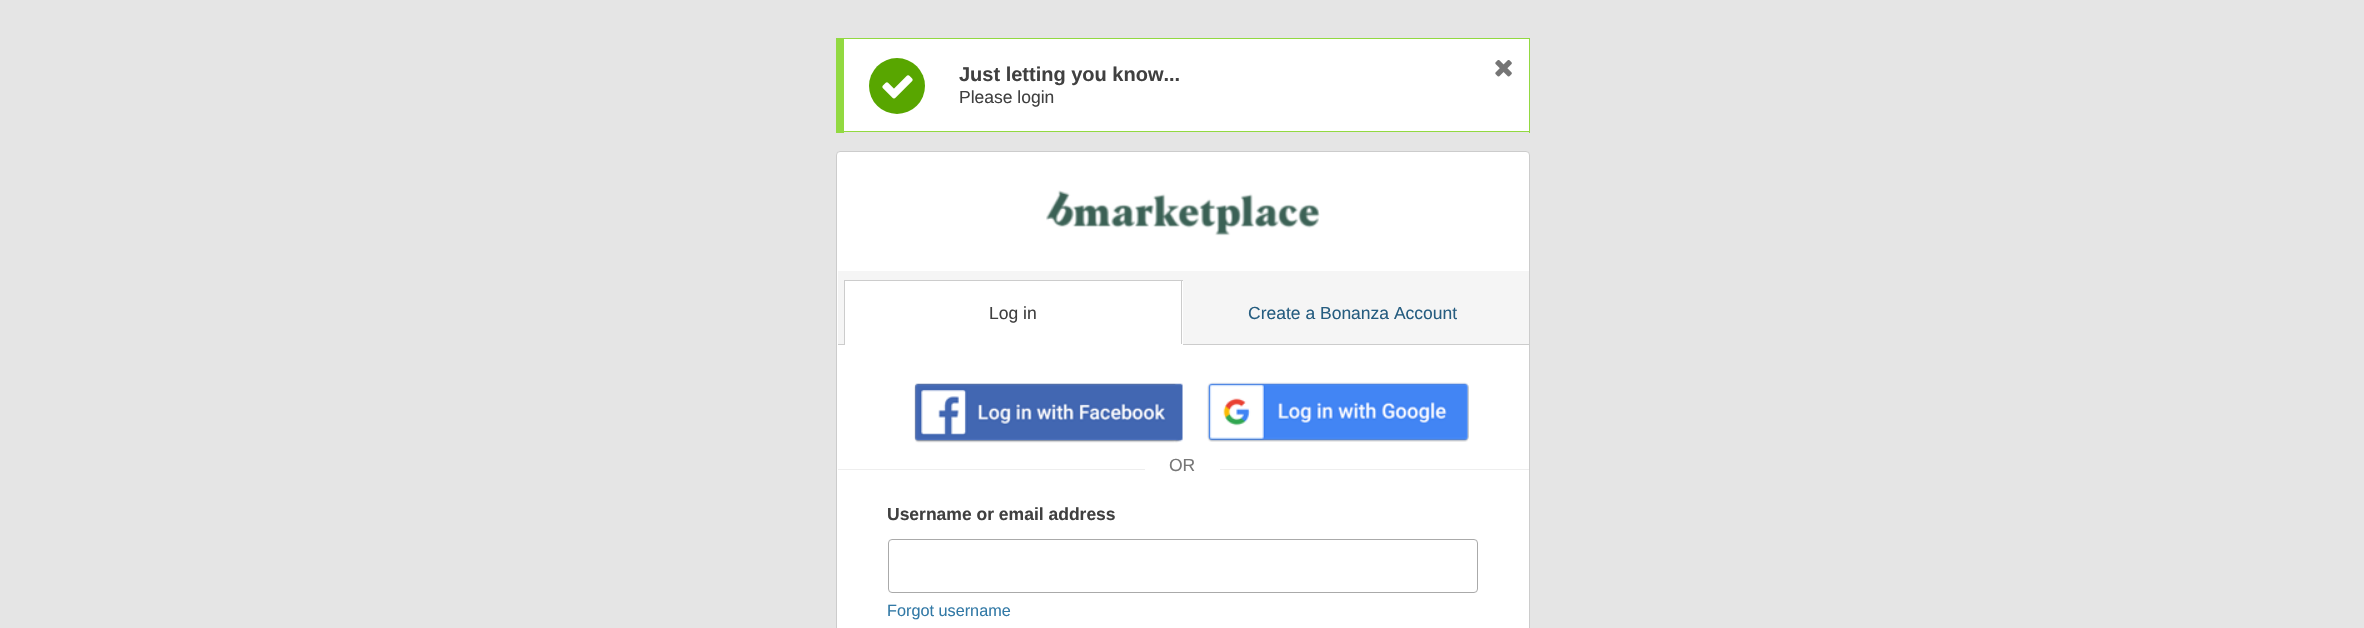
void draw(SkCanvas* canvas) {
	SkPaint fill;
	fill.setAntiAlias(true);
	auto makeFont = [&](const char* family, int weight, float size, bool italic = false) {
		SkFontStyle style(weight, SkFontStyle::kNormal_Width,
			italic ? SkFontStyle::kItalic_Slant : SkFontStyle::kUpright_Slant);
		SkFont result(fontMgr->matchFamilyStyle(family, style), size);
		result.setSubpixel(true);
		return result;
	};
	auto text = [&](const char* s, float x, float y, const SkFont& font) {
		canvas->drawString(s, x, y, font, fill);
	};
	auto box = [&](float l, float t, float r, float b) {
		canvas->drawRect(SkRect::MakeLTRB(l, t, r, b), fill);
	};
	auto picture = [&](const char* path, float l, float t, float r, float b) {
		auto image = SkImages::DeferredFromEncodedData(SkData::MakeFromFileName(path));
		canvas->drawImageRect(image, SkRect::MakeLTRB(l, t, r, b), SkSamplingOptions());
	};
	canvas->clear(0xFFE5E5E5);
	fill.setColor(0xFFFFFFFF);
	box(844, 39, 1529, 131);
	fill.setColor(0xFF92D941);
	box(836, 38, 1530, 39);
	box(1529, 38, 1530, 133);
	box(836, 131, 1530, 132);
	box(836, 38, 844, 133);
	fill.setColor(0xFF58A600);
	canvas->drawCircle(897, 86, 28, fill);
	picture("image0.png", 882, 75, 913, 99);
	picture("image1.png", 1495, 60, 1512, 77);
	fill.setColor(0xFFFFFFFF);
	canvas->drawRoundRect(SkRect::MakeLTRB(836.5f, 151.5f, 1529.5f, 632.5f), 3.5f, 3.5f, fill);
	fill.setStyle(SkPaint::kStroke_Style);
	fill.setStrokeWidth(1);
	fill.setColor(0xFFCCCCCC);
	canvas->drawRoundRect(SkRect::MakeLTRB(836.5f, 151.5f, 1529.5f, 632.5f), 3.5f, 3.5f, fill);
	picture("image2.png", 1046, 190, 1320, 236);
	fill.setStyle(SkPaint::kFill_Style);
	fill.setColor(0xFFF5F5F5);
	box(838, 271, 1529, 344);
	fill.setColor(0xFFCCCCCC);
	box(838, 344, 1529, 345);
	fill.setColor(0xFFFFFFFF);
	box(845, 281, 1183, 344);
	fill.setColor(0xFFCCCCCC);
	box(844, 280, 1183, 281);
	box(1181, 280, 1182, 345);
	fill.setColor(0xFFFFFFFF);
	box(844, 344, 1183, 345);
	fill.setColor(0xFFCCCCCC);
	box(844, 280, 845, 345);
	fill.setColor(0xFFEEEEEE);
	box(838, 469, 1529, 470);
	picture("image3.png", 914, 383, 1183, 443);
	picture("image4.png", 1207, 382, 1469, 442);
	fill.setColor(0xFFFFFFFF);
	box(1145, 469, 1220, 470);
	fill.setStyle(SkPaint::kStroke_Style);
	fill.setColor(0xFFAAAAAA);
	canvas->drawRoundRect(SkRect::MakeLTRB(888.5f, 539.5f, 1477.5f, 592.5f), 3.5f, 3.5f, fill);
	auto font1 = makeFont("Liberation Sans", 700, 20);
	fill.setStyle(SkPaint::kFill_Style);
	fill.setColor(0xFF404040);
	text("Just letting you know...", 959, 81, font1);
	auto font2 = makeFont("Liberation Sans", 400, 17.5f);
	text("Please login", 959, 103, font2);
	text("Log in", 989, 319, font2);
	fill.setColor(0xFF265D80);
	text("Create a Bonanza Account", 1248, 319, font2);
	fill.setColor(0xFF777777);
	text("OR", 1169, 471, font2);
	auto font3 = makeFont("Liberation Sans", 700, 17.5f);
	fill.setColor(0xFF404040);
	text("Username or email address", 887, 520, font3);
	auto font4 = makeFont("Liberation Sans", 400, 16.25f);
	fill.setColor(0xFF3279A6);
	text("Forgot username", 887, 616, font4);
}
